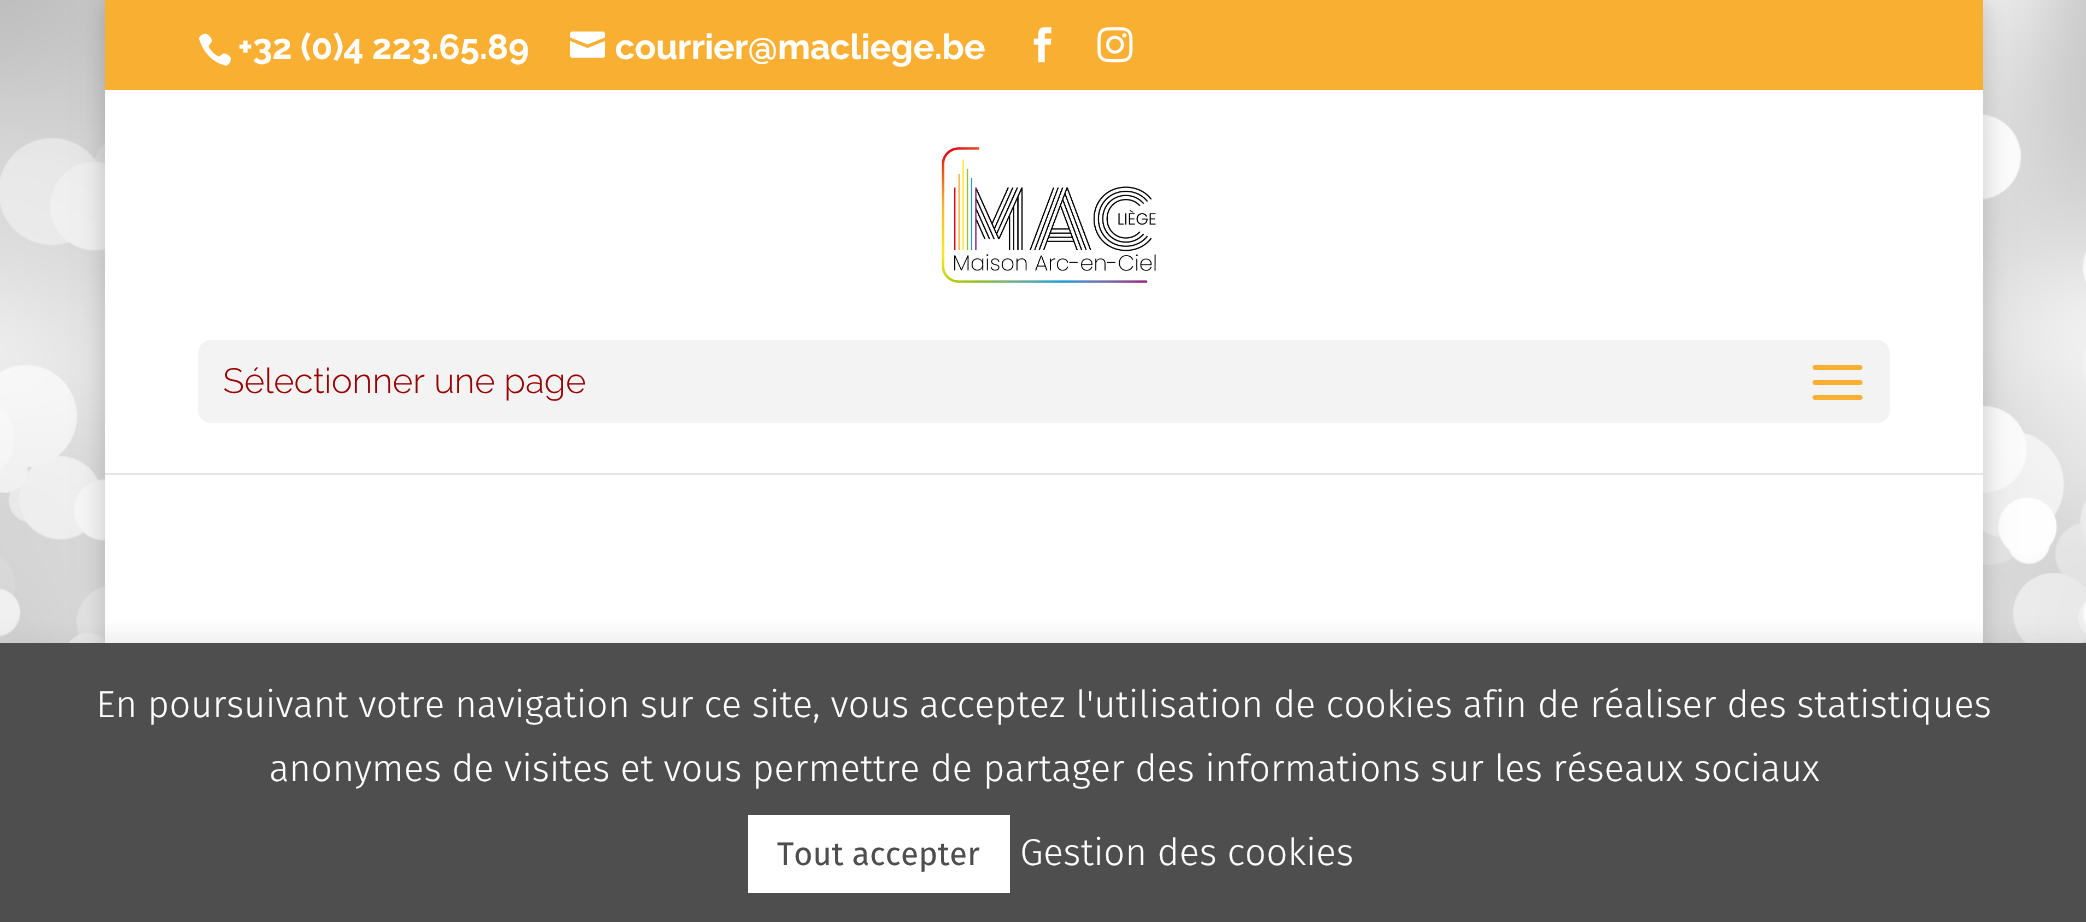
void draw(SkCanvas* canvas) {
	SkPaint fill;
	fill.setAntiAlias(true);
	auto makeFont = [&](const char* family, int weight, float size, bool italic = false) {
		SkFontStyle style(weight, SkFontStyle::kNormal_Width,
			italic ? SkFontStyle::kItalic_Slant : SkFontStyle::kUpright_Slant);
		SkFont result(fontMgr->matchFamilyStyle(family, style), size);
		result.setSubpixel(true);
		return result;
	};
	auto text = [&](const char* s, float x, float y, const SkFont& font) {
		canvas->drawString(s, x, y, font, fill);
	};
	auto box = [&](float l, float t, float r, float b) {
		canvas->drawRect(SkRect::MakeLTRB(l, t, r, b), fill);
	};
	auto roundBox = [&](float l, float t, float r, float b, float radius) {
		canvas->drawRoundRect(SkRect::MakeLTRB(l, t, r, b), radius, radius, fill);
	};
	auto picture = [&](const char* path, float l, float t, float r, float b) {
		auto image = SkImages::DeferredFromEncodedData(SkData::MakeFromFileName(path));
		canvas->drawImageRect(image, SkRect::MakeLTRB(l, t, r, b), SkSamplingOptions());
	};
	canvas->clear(0xFFFFFFFF);
	picture("image0.png", 0, 0, 2086, 643);
	fill.setColor(0x33000000);
	fill.setMaskFilter(SkMaskFilter::MakeBlur(kNormal_SkBlurStyle, 12.5f));
	canvas->drawRect(SkRect::MakeLTRB(105, 0, 1983, 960), fill);
	fill.setMaskFilter(nullptr);
	fill.setColor(0xFFF8AF32);
	box(105, 0, 1983, 90);
	picture("image1.png", 199, 33, 231, 66);
	picture("image2.png", 570, 31, 605, 58);
	picture("image3.png", 1033, 27, 1052, 63);
	picture("image4.png", 1097, 27, 1133, 63);
	fill.setColor(0xFFFFFFFF);
	box(105, 473, 1983, 643);
	fill.setColor(0x1A000000);
	canvas->drawPath(SkPathBuilder().moveTo(105, 472).lineTo(105, 475).lineTo(1983, 475).lineTo(1983, 93).lineTo(1982, 93).lineTo(1982, 472).close().detach(), fill);
	fill.setColor(0xFFFFFFFF);
	box(105, 90, 1983, 473);
	picture("image5.png", 941, 147, 1156, 283);
	fill.setColor(0xFFF3F3F3);
	roundBox(198, 340, 1890, 423, 13);
	picture("image6.png", 1812, 365, 1863, 400);
	fill.setColor(0x4DACABAB);
	fill.setMaskFilter(SkMaskFilter::MakeBlur(kNormal_SkBlurStyle, 12.5f));
	canvas->drawRect(SkRect::MakeLTRB(0, 640, 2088, 920), fill);
	fill.setMaskFilter(nullptr);
	fill.setColor(0xFF4D4E4D);
	box(0, 643, 2086, 922);
	fill.setColor(0xFFFFFFFF);
	box(748, 815, 1010, 893);
	auto font1 = makeFont("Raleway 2", 100, 35);
	text("+32 (0)4 223.65.89", 238, 59, font1);
	text("courrier@macliege.be", 615, 59, font1);
	auto font2 = makeFont("Raleway", 100, 35);
	fill.setColor(0xFF990000);
	text("Sélectionner une page", 223, 393, font2);
	auto font3 = makeFont("Fira Sans", 300, 37.5f);
	fill.setColor(0xFFFFFFFF);
	text("En poursuivant votre navigation sur ce site, vous acceptez l'utilisation de cookies afin de réaliser des statistiques", 96, 717, font3);
	text("anonymes de visites et vous permettre de partager des informations sur les réseaux sociaux", 269, 781, font3);
	auto font4 = makeFont("Fira Sans", 400, 32.5f);
	fill.setColor(0xFF4D4E4D);
	text("Tout accepter", 777, 865, font4);
	fill.setColor(0xFFFFFFFF);
	text("Gestion des cookies", 1020, 865, font3);
}
